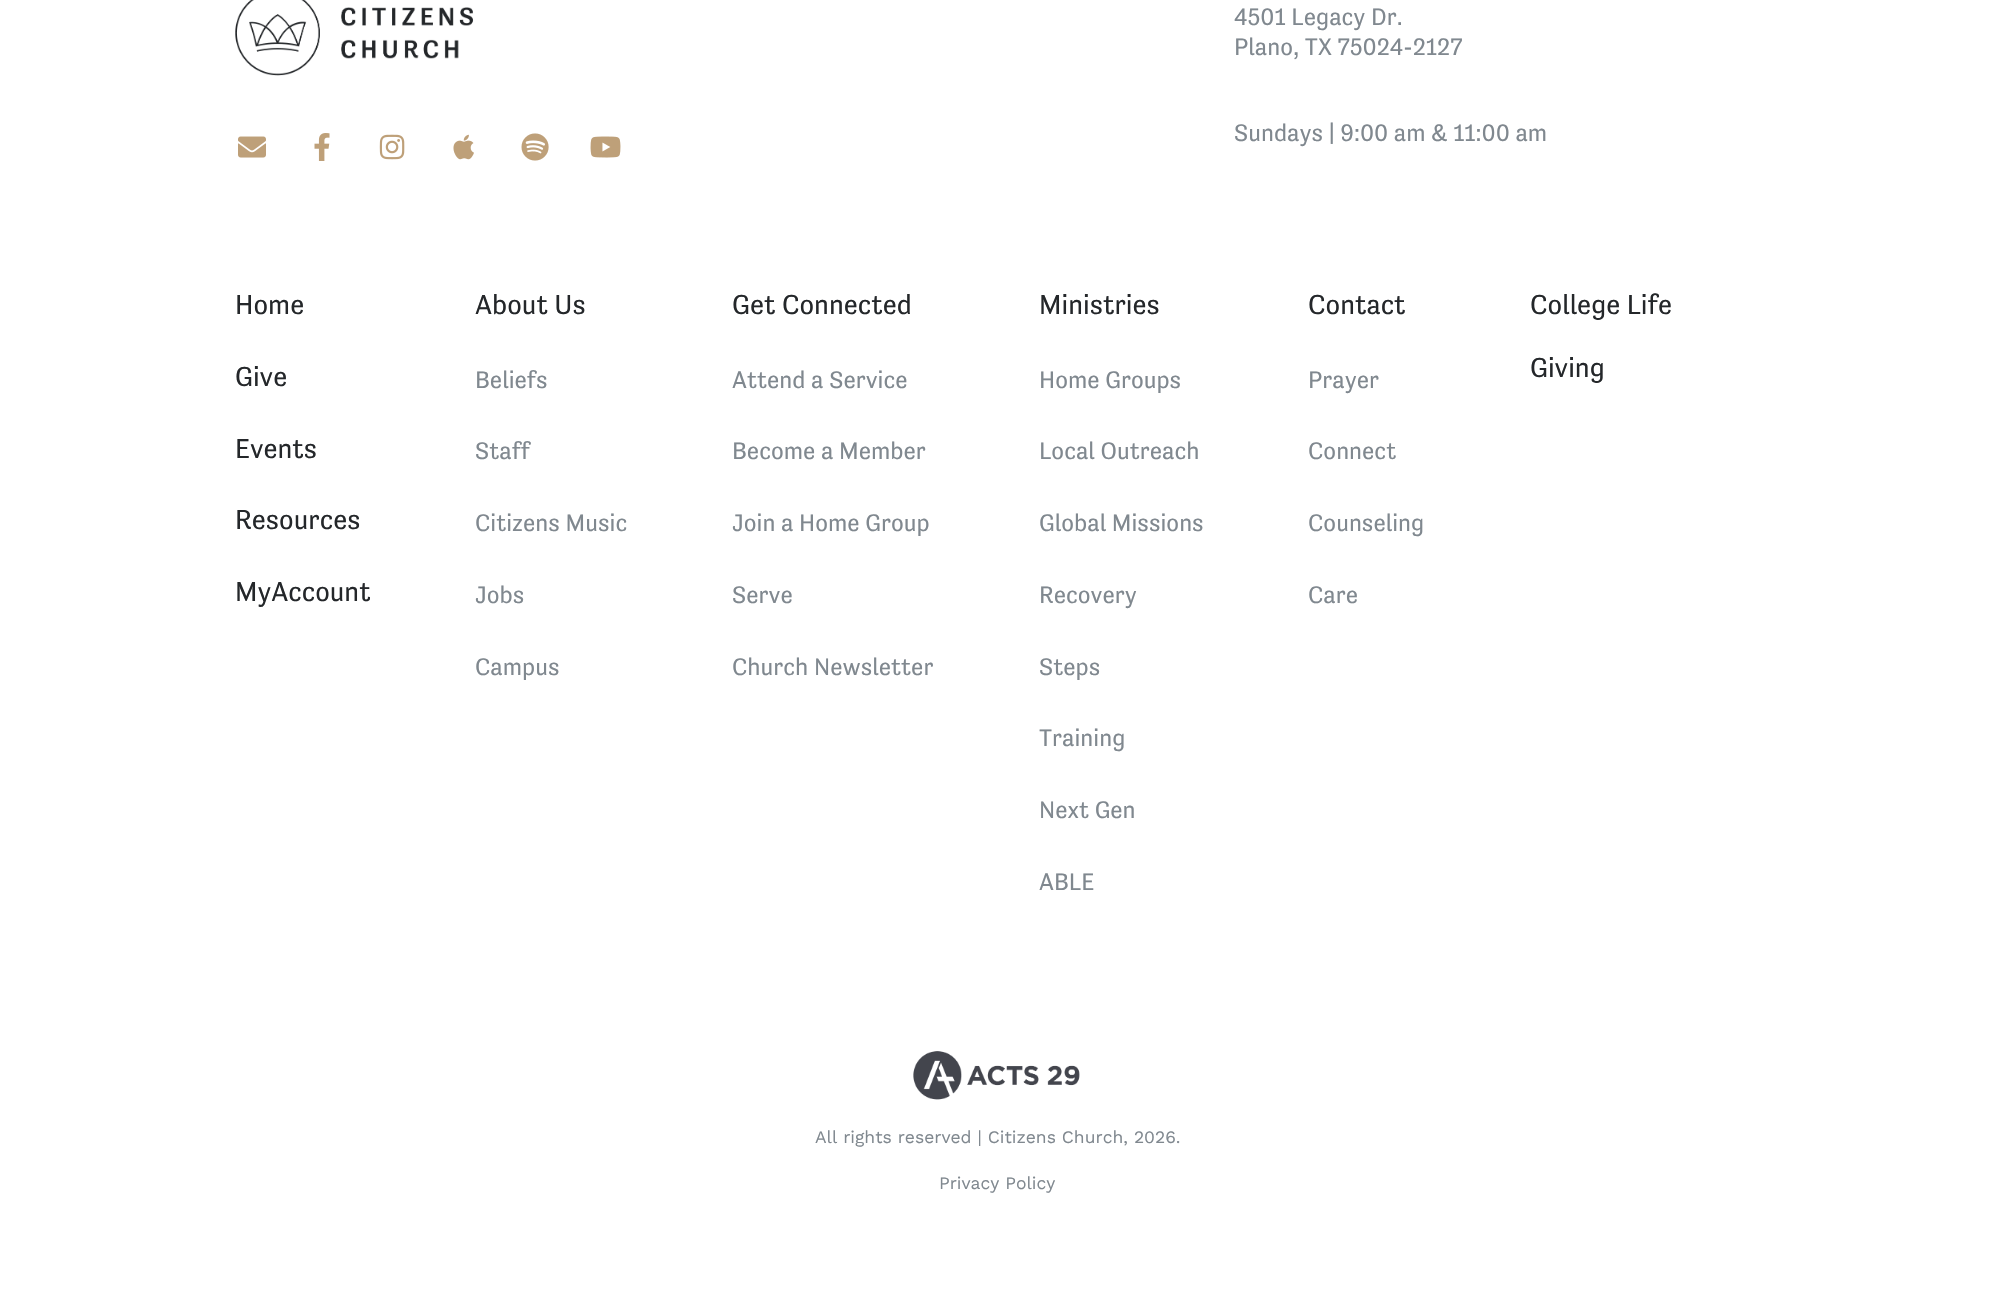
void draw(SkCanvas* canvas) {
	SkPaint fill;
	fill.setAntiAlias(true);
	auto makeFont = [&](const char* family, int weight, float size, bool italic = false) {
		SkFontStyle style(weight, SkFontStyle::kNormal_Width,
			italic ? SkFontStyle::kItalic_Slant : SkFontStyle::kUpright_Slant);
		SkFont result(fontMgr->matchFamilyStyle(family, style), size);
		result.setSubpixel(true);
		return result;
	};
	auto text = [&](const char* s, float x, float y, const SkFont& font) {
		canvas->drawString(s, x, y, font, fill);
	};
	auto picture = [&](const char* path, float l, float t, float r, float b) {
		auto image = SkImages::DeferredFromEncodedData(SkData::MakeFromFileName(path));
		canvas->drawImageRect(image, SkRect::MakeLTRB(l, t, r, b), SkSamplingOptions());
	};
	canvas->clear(0xFFFFFFFF);
	picture("image0.png", 235, 0, 474, 76);
	picture("image1.png", 238, 136, 266, 158);
	picture("image2.png", 314, 133, 330, 161);
	picture("image3.png", 379, 134, 405, 160);
	picture("image4.png", 453, 134, 474, 160);
	picture("image5.png", 521, 133, 549, 161);
	picture("image6.png", 590, 136, 621, 158);
	picture("image7.png", 913, 1051, 1080, 1100);
	auto font1 = makeFont("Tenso", 400, 24.5f);
	fill.setColor(0xFF80888F);
	text("4501 Legacy Dr.", 1234, 25, font1);
	text("Plano, TX 75024-2127", 1234, 55, font1);
	text("Sundays | 9:00 am & 11:00 am", 1234, 141, font1);
	auto font2 = makeFont("Tenso", 400, 28);
	fill.setColor(0xFF24272A);
	text("Home", 235, 314, font2);
	text("Give", 235, 386, font2);
	text("Events", 235, 458, font2);
	text("Resources", 235, 529, font2);
	text("MyAccount", 235, 601, font2);
	text("About Us", 475, 314, font2);
	fill.setColor(0xFF80888F);
	text("Beliefs", 475, 388, font1);
	text("Staff", 475, 459, font1);
	text("Citizens Music", 475, 531, font1);
	text("Jobs", 475, 603, font1);
	text("Campus", 475, 675, font1);
	fill.setColor(0xFF24272A);
	text("Get Connected", 732, 314, font2);
	fill.setColor(0xFF80888F);
	text("Attend a Service", 732, 388, font1);
	text("Become a Member", 732, 459, font1);
	text("Join a Home Group", 732, 531, font1);
	text("Serve", 732, 603, font1);
	text("Church Newsletter", 732, 675, font1);
	fill.setColor(0xFF24272A);
	text("Ministries", 1039, 314, font2);
	fill.setColor(0xFF80888F);
	text("Home Groups", 1039, 388, font1);
	text("Local Outreach", 1039, 459, font1);
	text("Global Missions", 1039, 531, font1);
	text("Recovery", 1039, 603, font1);
	text("Steps", 1039, 675, font1);
	text("Training", 1039, 746, font1);
	text("Next Gen", 1039, 818, font1);
	text("ABLE", 1039, 890, font1);
	fill.setColor(0xFF24272A);
	text("Contact", 1308, 314, font2);
	fill.setColor(0xFF80888F);
	text("Prayer", 1308, 388, font1);
	text("Connect", 1308, 459, font1);
	text("Counseling", 1308, 531, font1);
	text("Care", 1308, 603, font1);
	fill.setColor(0xFF24272A);
	text("College Life", 1530, 314, font2);
	text("Giving", 1530, 377, font2);
	auto font3 = makeFont("Work Sans", 400, 17.5f);
	fill.setColor(0xFF80888F);
	text("All rights reserved | Citizens Church, 2026.", 815, 1143, font3);
	text("Privacy Policy", 939, 1189, font3);
}
